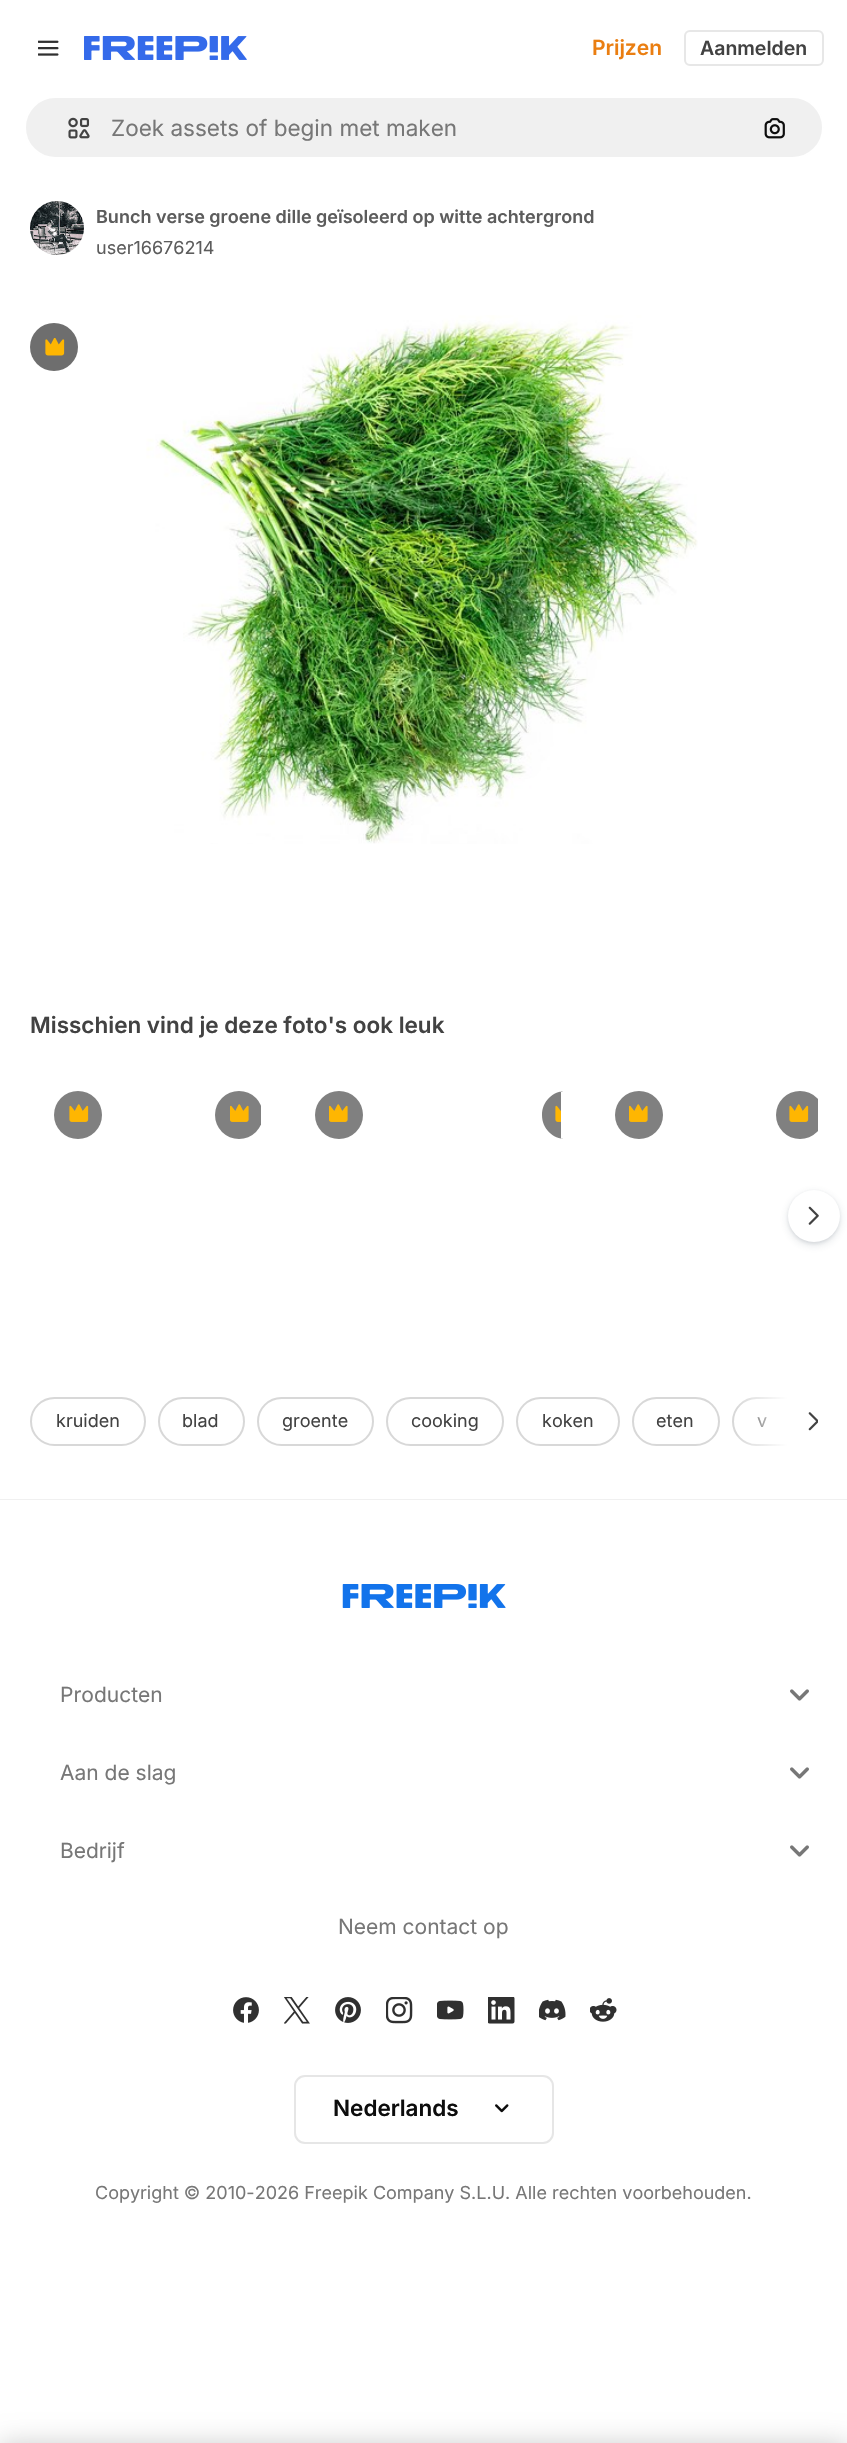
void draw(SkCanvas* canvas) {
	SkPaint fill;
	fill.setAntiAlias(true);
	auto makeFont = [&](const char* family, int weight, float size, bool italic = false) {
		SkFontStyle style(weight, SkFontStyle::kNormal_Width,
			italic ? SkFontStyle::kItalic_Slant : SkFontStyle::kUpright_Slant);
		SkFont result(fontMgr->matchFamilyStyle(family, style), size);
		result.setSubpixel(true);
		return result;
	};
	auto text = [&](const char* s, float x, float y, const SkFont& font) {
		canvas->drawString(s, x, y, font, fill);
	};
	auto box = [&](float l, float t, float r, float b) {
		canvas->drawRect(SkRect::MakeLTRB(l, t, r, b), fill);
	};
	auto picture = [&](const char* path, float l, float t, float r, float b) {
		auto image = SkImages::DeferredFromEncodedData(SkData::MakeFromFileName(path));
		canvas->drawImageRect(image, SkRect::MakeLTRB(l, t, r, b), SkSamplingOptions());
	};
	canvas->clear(0xFFFFFFFF);
	picture("image0.png", 38, 40, 59, 56);
	picture("image1.png", 84, 36, 247, 60);
	fill.setStyle(SkPaint::kStroke_Style);
	fill.setStrokeWidth(2);
	fill.setColor(0xFFE7E7E7);
	canvas->drawRoundRect(SkRect::MakeLTRB(685, 31, 823, 65), 5, 5, fill);
	fill.setStyle(SkPaint::kFill_Style);
	fill.setColor(0xFFF0F0F0);
	canvas->drawRoundRect(SkRect::MakeLTRB(25, 97, 823, 158), 30.5f, 30.5f, fill);
	fill.setStyle(SkPaint::kStroke_Style);
	fill.setColor(0xFFFFFFFF);
	canvas->drawRoundRect(SkRect::MakeLTRB(25, 97, 823, 158), 30.5f, 30.5f, fill);
	picture("image2.png", 68, 117, 90, 139);
	picture("image3.png", 764, 118, 785, 139);
	picture("image4.png", 30, 201, 84, 255);
	fill.setStyle(SkPaint::kFill_Style);
	fill.setColor(0xFF6E6E6E);
	canvas->drawCircle(54, 347, 24, fill);
	picture("image5.png", 45, 338, 65, 356);
	picture("image6.png", 146, 315, 698, 844);
	fill.setColor(0xFF808080);
	canvas->drawCircle(78, 1115, 24, fill);
	picture("image7.png", 69, 1104, 89, 1122);
	canvas->save();
	canvas->clipPath(SkPathBuilder().moveTo(215, 1067).lineTo(237, 1067).cubicTo(250.5f, 1067, 261, 1077.5f, 261, 1091).lineTo(261, 1343).cubicTo(261, 1356.5f, 250.5f, 1367, 237, 1367).lineTo(215, 1367).cubicTo(201.5f, 1367, 191, 1356.5f, 191, 1343).lineTo(191, 1091).cubicTo(191, 1077.5f, 201.5f, 1067, 215, 1067).close().detach(), true);
	canvas->drawCircle(239, 1115, 24, fill);
	canvas->restore();
	picture("image8.png", 230, 1104, 249, 1122);
	canvas->drawCircle(339, 1115, 24, fill);
	picture("image8.png", 329, 1104, 348, 1122);
	canvas->drawPath(SkPathBuilder().moveTo(566, 1091).lineTo(561, 1091).lineTo(561, 1139).lineTo(566, 1139).cubicTo(552.5f, 1139, 542, 1128.5f, 542, 1115).cubicTo(542, 1101.5f, 552.5f, 1091, 566, 1091).close().detach(), fill);
	picture("image9.png", 555, 1105, 561, 1122);
	canvas->drawCircle(639, 1115, 24, fill);
	picture("image8.png", 629, 1104, 648, 1122);
	canvas->save();
	canvas->clipRect(SkRect::MakeLTRB(30, 1067, 818, 1367));
	canvas->drawCircle(800, 1115, 24, fill);
	canvas->restore();
	picture("image7.png", 789, 1104, 809, 1122);
	fill.setColor(0x26374957);
	fill.setMaskFilter(SkMaskFilter::MakeBlur(kNormal_SkBlurStyle, 4));
	canvas->drawRoundRect(SkRect::MakeLTRB(788, 1193, 840, 1245), 26, 26, fill);
	fill.setMaskFilter(nullptr);
	fill.setColor(0x1A374957);
	fill.setMaskFilter(SkMaskFilter::MakeBlur(kNormal_SkBlurStyle, 1.5f));
	canvas->drawRoundRect(SkRect::MakeLTRB(788, 1191, 840, 1244), 26, 26, fill);
	fill.setMaskFilter(nullptr);
	fill.setColor(0xFFFFFFFF);
	canvas->drawCircle(814, 1216, 26, fill);
	picture("image10.png", 808, 1206, 819, 1225);
	fill.setStyle(SkPaint::kStroke_Style);
	fill.setColor(0xFFD8D8D8);
	canvas->drawRoundRect(SkRect::MakeLTRB(31, 1398, 145, 1445), 23.5f, 23.5f, fill);
	canvas->drawRoundRect(SkRect::MakeLTRB(159, 1398, 244, 1445), 23.5f, 23.5f, fill);
	canvas->drawRoundRect(SkRect::MakeLTRB(258, 1398, 373, 1445), 23.5f, 23.5f, fill);
	canvas->drawRoundRect(SkRect::MakeLTRB(387, 1398, 503, 1445), 23.5f, 23.5f, fill);
	canvas->drawRoundRect(SkRect::MakeLTRB(517, 1398, 619, 1445), 23.5f, 23.5f, fill);
	canvas->drawRoundRect(SkRect::MakeLTRB(633, 1398, 719, 1445), 23.5f, 23.5f, fill);
	canvas->save();
	canvas->clipRect(SkRect::MakeLTRB(30, 1397, 818, 1446));
	canvas->drawRoundRect(SkRect::MakeLTRB(733, 1398, 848, 1445), 23.5f, 23.5f, fill);
	canvas->restore();
	fill.setStyle(SkPaint::kFill_Style);
	fill.setColor(0xFFFFFFFF);
	box(788, 1397, 818, 1446);
	picture("image11.png", 808, 1412, 818, 1431);
	fill.setColor(0xFFF0F0F0);
	box(0, 1499, 847, 1500);
	picture("image12.png", 342, 1584, 506, 1608);
	picture("image13.png", 790, 1689, 809, 1701);
	picture("image13.png", 790, 1767, 809, 1779);
	picture("image13.png", 790, 1845, 809, 1857);
	picture("image14.png", 233, 1997, 259, 2023);
	picture("image15.png", 284, 1997, 310, 2024);
	picture("image16.png", 335, 1997, 361, 2023);
	picture("image17.png", 386, 1997, 413, 2024);
	picture("image18.png", 437, 2000, 464, 2020);
	picture("image19.png", 488, 1997, 515, 2024);
	picture("image20.png", 539, 1999, 566, 2021);
	picture("image21.png", 590, 1998, 617, 2022);
	fill.setStyle(SkPaint::kStroke_Style);
	fill.setColor(0xFFE6E6E6);
	canvas->drawRoundRect(SkRect::MakeLTRB(295, 2076, 553, 2143), 10, 10, fill);
	picture("image22.png", 495, 2104, 509, 2113);
	fill.setStyle(SkPaint::kFill_Style);
	fill.setColor(0x33000000);
	fill.setMaskFilter(SkMaskFilter::MakeBlur(kNormal_SkBlurStyle, 13.5f));
	canvas->drawRect(SkRect::MakeLTRB(0, 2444, 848, 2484), fill);
	fill.setMaskFilter(nullptr);
	auto font1 = makeFont("Inter", 600, 21);
	fill.setColor(0xFFEA7E11);
	text("Prijzen", 592, 55, font1);
	auto font2 = makeFont("Inter", 600, 19.5f);
	fill.setColor(0xFF424242);
	text("Aanmelden", 700, 55, font2);
	auto font3 = makeFont("Inter", 400, 22.5f);
	fill.setColor(0xFF777777);
	text("Zoek assets of begin met maken", 111, 136, font3);
	auto font4 = makeFont("Inter", 600, 18);
	fill.setColor(0xFF5C5C5C);
	text("Bunch verse groene dille geïsoleerd op witte achtergrond", 96, 223, font4);
	auto font5 = makeFont("Inter", 400, 18);
	text("user16676214", 96, 254, font5);
	auto font6 = makeFont("Inter", 600, 22.5f);
	fill.setColor(0xFF424242);
	text("Misschien vind je deze foto's ook leuk", 30, 1033, font6);
	text("kruiden", 56, 1427, font5);
	text("blad", 182, 1427, font5);
	text("groente", 282, 1427, font5);
	text("cooking", 411, 1427, font5);
	text("koken", 542, 1427, font5);
	text("eten", 656, 1427, font5);
	text("v", 757, 1427, font5);
	{
		const SkColor colors[] = {0xFFFFFFFF, 0x00FFFFFF};
		const float stops[] = {0, 1};
		const SkPoint ends[] = {{788, 1421}, {735, 1421}};
		fill.setShader(SkGradientShader::MakeLinear(ends, colors, stops, 2, SkTileMode::kClamp));
		fill.setAlpha(255);
	}
	box(738, 1397, 788, 1446);
	auto font7 = makeFont("Inter", 400, 21);
	fill.setShader(nullptr);
	fill.setColor(0xFF777777);
	text("Producten", 60, 1702, font7);
	text("Aan de slag", 60, 1780, font7);
	text("Bedrijf", 60, 1858, font7);
	text("Neem contact op", 338, 1934, font7);
	fill.setColor(0xFF0D0D0D);
	text("Nederlands", 333, 2116, font6);
	fill.setColor(0xFF777777);
	text("Copyright © 2010-2026 Freepik Company S.L.U. Alle rechten voorbehouden.", 95, 2199, font5);
}
